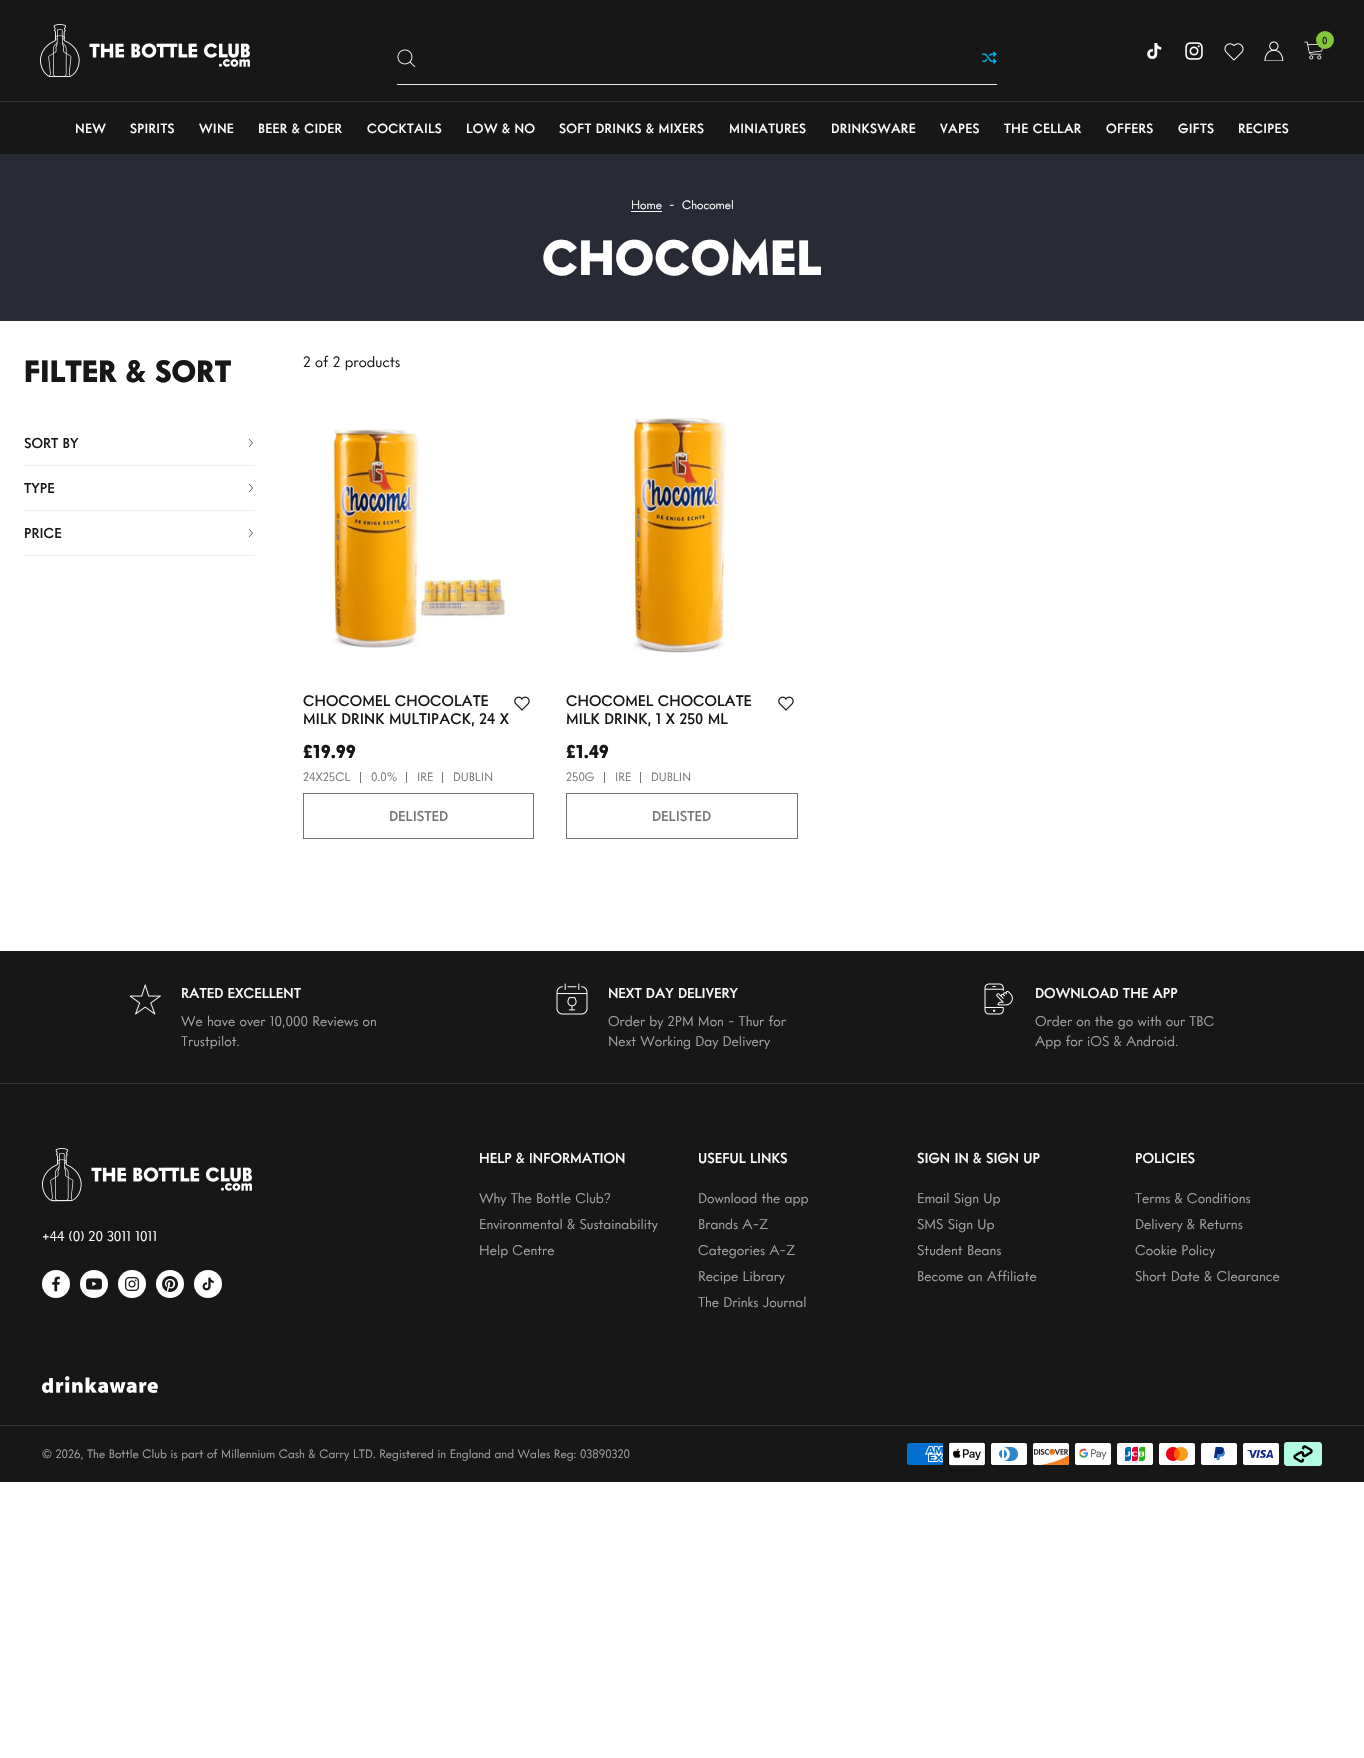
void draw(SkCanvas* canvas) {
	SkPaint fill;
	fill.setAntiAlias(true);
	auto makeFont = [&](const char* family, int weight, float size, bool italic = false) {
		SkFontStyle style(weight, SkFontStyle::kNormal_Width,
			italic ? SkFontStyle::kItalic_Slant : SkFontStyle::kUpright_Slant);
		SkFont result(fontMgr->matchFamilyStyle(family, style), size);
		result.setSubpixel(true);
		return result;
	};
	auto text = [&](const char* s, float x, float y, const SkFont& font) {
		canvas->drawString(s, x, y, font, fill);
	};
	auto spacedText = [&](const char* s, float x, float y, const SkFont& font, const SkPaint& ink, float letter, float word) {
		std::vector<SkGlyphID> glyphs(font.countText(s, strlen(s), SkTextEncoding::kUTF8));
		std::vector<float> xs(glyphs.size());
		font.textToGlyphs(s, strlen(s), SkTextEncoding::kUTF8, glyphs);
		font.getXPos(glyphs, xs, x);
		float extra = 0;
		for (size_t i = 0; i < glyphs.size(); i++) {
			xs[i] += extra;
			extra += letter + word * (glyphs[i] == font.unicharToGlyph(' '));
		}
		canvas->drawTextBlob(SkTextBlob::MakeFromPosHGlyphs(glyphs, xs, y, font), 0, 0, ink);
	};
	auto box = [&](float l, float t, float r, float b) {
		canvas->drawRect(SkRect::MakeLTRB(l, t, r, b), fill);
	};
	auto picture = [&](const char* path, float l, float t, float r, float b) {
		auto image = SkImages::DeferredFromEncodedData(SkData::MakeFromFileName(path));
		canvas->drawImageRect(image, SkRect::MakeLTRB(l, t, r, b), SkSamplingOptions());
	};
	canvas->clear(0xFFFFFFFF);
	fill.setColor(0xFF171717);
	box(0, 0, 1364, 154);
	picture("image0.png", 40, 24, 250, 77);
	picture("image1.png", 1147, 43, 1162, 59);
	picture("image2.png", 1185, 42, 1203, 60);
	picture("image3.png", 1224, 43, 1244, 61);
	picture("image4.png", 1264, 41, 1284, 61);
	picture("image5.png", 1304, 41, 1323, 60);
	fill.setColor(0xFF83C83A);
	canvas->drawCircle(1325, 40, 9, fill);
	fill.setColor(0xFFE5E7EB);
	box(397, 84, 997, 85);
	picture("image6.png", 397, 49, 416, 67);
	picture("image7.png", 982, 51, 997, 64);
	fill.setColor(0xFF333333);
	box(0, 101, 1364, 102);
	fill.setColor(0xFF282B35);
	box(0, 154, 1364, 321);
	fill.setColor(0xFFFFFFFF);
	box(631, 211, 662, 212);
	fill.setColor(0xFFEEEEEE);
	box(24, 465, 255, 466);
	fill.setStyle(SkPaint::kStroke_Style);
	fill.setStrokeWidth(0.7f);
	fill.setStrokeCap(SkPaint::kSquare_Cap);
	fill.setColor(0xFF171717);
	canvas->drawPath(SkPathBuilder().moveTo(249.5f, 439.5f).lineTo(252.5f, 443).lineTo(249.5f, 446.5f).detach(), fill);
	fill.setStyle(SkPaint::kFill_Style);
	fill.setColor(0xFFEEEEEE);
	box(24, 510, 255, 511);
	fill.setStyle(SkPaint::kStroke_Style);
	fill.setColor(0xFF171717);
	canvas->drawPath(SkPathBuilder().moveTo(249.5f, 484.5f).lineTo(252.5f, 488).lineTo(249.5f, 491.5f).detach(), fill);
	fill.setStyle(SkPaint::kFill_Style);
	fill.setColor(0xFFEEEEEE);
	box(24, 555, 255, 556);
	fill.setStyle(SkPaint::kStroke_Style);
	fill.setColor(0xFF171717);
	canvas->drawPath(SkPathBuilder().moveTo(249.5f, 529.5f).lineTo(252.5f, 533).lineTo(249.5f, 536.5f).detach(), fill);
	picture("image8.png", 332, 429, 506, 648);
	picture("image9.png", 514, 696, 530, 711);
	fill.setStyle(SkPaint::kFill_Style);
	fill.setColor(0xFF757575);
	box(360, 772, 361, 783);
	box(406, 772, 407, 783);
	box(442, 772, 443, 783);
	fill.setStyle(SkPaint::kStroke_Style);
	fill.setStrokeWidth(1);
	fill.setStrokeCap(SkPaint::kButt_Cap);
	fill.setColor(0xFF747474);
	canvas->drawRect(SkRect::MakeLTRB(303.5f, 793.5f, 533.5f, 838.5f), fill);
	picture("image10.png", 632, 418, 726, 653);
	picture("image9.png", 778, 696, 794, 711);
	fill.setStyle(SkPaint::kFill_Style);
	fill.setColor(0xFF757575);
	box(604, 772, 605, 783);
	box(640, 772, 641, 783);
	fill.setStyle(SkPaint::kStroke_Style);
	fill.setColor(0xFF747474);
	canvas->drawRect(SkRect::MakeLTRB(566.5f, 793.5f, 797.5f, 838.5f), fill);
	fill.setStyle(SkPaint::kFill_Style);
	fill.setColor(0xFF171717);
	box(0, 951, 1364, 1083);
	picture("image11.png", 130, 984, 161, 1015);
	picture("image12.png", 556, 983, 588, 1015);
	picture("image13.png", 984, 983, 1013, 1015);
	box(0, 1084, 1364, 1482);
	fill.setColor(0xFF333333);
	box(0, 1083, 1364, 1084);
	picture("image14.png", 42, 1148, 252, 1202);
	fill.setColor(0xFFFFFFFF);
	canvas->drawCircle(56, 1284, 14, fill);
	picture("image15.png", 52, 1276, 60, 1292);
	canvas->drawCircle(94, 1284, 14, fill);
	picture("image16.png", 86, 1278, 102, 1290);
	canvas->drawCircle(132, 1284, 14, fill);
	picture("image17.png", 125, 1277, 139, 1291);
	canvas->drawCircle(170, 1284, 14, fill);
	picture("image18.png", 162, 1276, 178, 1292);
	canvas->drawCircle(208, 1284, 14, fill);
	picture("image19.png", 202, 1277, 214, 1291);
	picture("image20.png", 42, 1376, 158, 1393);
	fill.setColor(0xFF333333);
	box(0, 1425, 1364, 1426);
	picture("image21.png", 907, 1443, 943, 1465);
	picture("image22.png", 948, 1442, 986, 1466);
	picture("image23.png", 991, 1443, 1027, 1465);
	picture("image24.png", 1033, 1443, 1069, 1465);
	picture("image25.png", 1075, 1443, 1111, 1465);
	picture("image26.png", 1117, 1443, 1153, 1465);
	picture("image27.png", 1159, 1443, 1195, 1465);
	picture("image28.png", 1201, 1443, 1237, 1465);
	picture("image29.png", 1243, 1443, 1279, 1465);
	picture("image30.png", 1284, 1442, 1322, 1466);
	auto font1 = makeFont("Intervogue", 500, 10);
	fill.setColor(0xFF171717);
	text("0", 1322, 44, font1);
	auto font2 = makeFont("Intervogue", 500, 13);
	fill.setColor(0xFFFFFFFF);
	spacedText("NEW", 75, 133, font2, fill, 0.3f, 0);
	spacedText("SPIRITS", 130, 133, font2, fill, 0.3f, 0);
	spacedText("WINE", 199, 133, font2, fill, 0.3f, 0);
	spacedText("BEER & CIDER", 258, 133, font2, fill, 0.3f, 0);
	spacedText("COCKTAILS", 367, 133, font2, fill, 0.3f, 0);
	spacedText("LOW & NO", 466, 133, font2, fill, 0.3f, 0);
	spacedText("SOFT DRINKS & MIXERS", 559, 133, font2, fill, 0.3f, 0);
	spacedText("MINIATURES", 729, 133, font2, fill, 0.3f, 0);
	spacedText("DRINKSWARE", 831, 133, font2, fill, 0.3f, 0);
	spacedText("VAPES", 940, 133, font2, fill, 0.3f, 0);
	spacedText("THE CELLAR", 1004, 133, font2, fill, 0.3f, 0);
	spacedText("OFFERS", 1106, 133, font2, fill, 0.3f, 0);
	spacedText("GIFTS", 1178, 133, font2, fill, 0.3f, 0);
	spacedText("RECIPES", 1238, 133, font2, fill, 0.3f, 0);
	auto font3 = makeFont("Intervogue", 400, 12);
	text("Home", 631, 209, font3);
	text("-", 669, 209, font3);
	text("Chocomel", 682, 209, font3);
	auto font4 = makeFont("Intervogue", 900, 48);
	text("CHOCOMEL", 542, 275, font4);
	auto font5 = makeFont("Intervogue", 900, 30);
	fill.setColor(0xFF171717);
	text("FILTER & SORT", 24, 382, font5);
	auto font6 = makeFont("Intervogue", 500, 14);
	text("SORT BY", 24, 448, font6);
	text("TYPE", 24, 493, font6);
	text("PRICE", 24, 538, font6);
	auto font7 = makeFont("Intervogue", 400, 15);
	text("2 of 2 products", 303, 367, font7);
	auto font8 = makeFont("Intervogue", 500, 15);
	text("CHOCOMEL CHOCOLATE", 303, 706, font8);
	text("MILK DRINK MULTIPACK, 24 X", 303, 724, font8);
	auto font9 = makeFont("Intervogue", 900, 18);
	text("£19.99", 303, 758, font9);
	fill.setColor(0xFF757575);
	text("24X25CL", 303, 781, font3);
	text("0.0%", 371, 781, font3);
	text("IRE", 417, 781, font3);
	text("DUBLIN", 453, 781, font3);
	text("DELISTED", 389, 821, font6);
	fill.setColor(0xFF171717);
	text("CHOCOMEL CHOCOLATE", 566, 706, font8);
	text("MILK DRINK, 1 X 250 ML", 566, 724, font8);
	text("£1.49", 566, 758, font9);
	fill.setColor(0xFF757575);
	text("250G", 566, 781, font3);
	text("IRE", 615, 781, font3);
	text("DUBLIN", 651, 781, font3);
	text("DELISTED", 652, 821, font6);
	fill.setColor(0xFFFFFFFF);
	text("RATED EXCELLENT", 181, 998, font6);
	auto font10 = makeFont("Intervogue", 400, 14);
	fill.setColor(0xFFA3A3A3);
	text("We have over 10,000 Reviews on", 181, 1026, font10);
	text("Trustpilot.", 181, 1046, font10);
	fill.setColor(0xFFFFFFFF);
	text("NEXT DAY DELIVERY", 608, 998, font6);
	fill.setColor(0xFFA3A3A3);
	text("Order by 2PM Mon - Thur for", 608, 1026, font10);
	text("Next Working Day Delivery", 608, 1046, font10);
	fill.setColor(0xFFFFFFFF);
	text("DOWNLOAD THE APP", 1035, 998, font6);
	fill.setColor(0xFFA3A3A3);
	text("Order on the go with our TBC", 1035, 1026, font10);
	text("App for iOS & Android.", 1035, 1046, font10);
	fill.setColor(0xFFFFFFFF);
	text("+44 (0) 20 3011 1011", 42, 1241, font10);
	text("HELP & INFORMATION", 479, 1163, font6);
	fill.setColor(0xFFA3A3A3);
	text("Why The Bottle Club?", 479, 1203, font10);
	text("Environmental & Sustainability", 479, 1229, font10);
	text("Help Centre", 479, 1255, font10);
	fill.setColor(0xFFFFFFFF);
	text("USEFUL LINKS", 698, 1163, font6);
	fill.setColor(0xFFA3A3A3);
	text("Download the app", 698, 1203, font10);
	text("Brands A-Z", 698, 1229, font10);
	text("Categories A-Z", 698, 1255, font10);
	text("Recipe Library", 698, 1281, font10);
	text("The Drinks Journal", 698, 1307, font10);
	fill.setColor(0xFFFFFFFF);
	text("SIGN IN & SIGN UP", 917, 1163, font6);
	fill.setColor(0xFFA3A3A3);
	text("Email Sign Up", 917, 1203, font10);
	text("SMS Sign Up", 917, 1229, font10);
	text("Student Beans", 917, 1255, font10);
	text("Become an Affiliate", 917, 1281, font10);
	fill.setColor(0xFFFFFFFF);
	text("POLICIES", 1135, 1163, font6);
	fill.setColor(0xFFA3A3A3);
	text("Terms & Conditions", 1135, 1203, font10);
	text("Delivery & Returns", 1135, 1229, font10);
	text("Cookie Policy", 1135, 1255, font10);
	text("Short Date & Clearance", 1135, 1281, font10);
	text("© 2026, The Bottle Club is part of Millennium Cash & Carry LTD. Registered in England and Wales Reg: 03890320", 42, 1458, font3);
}
